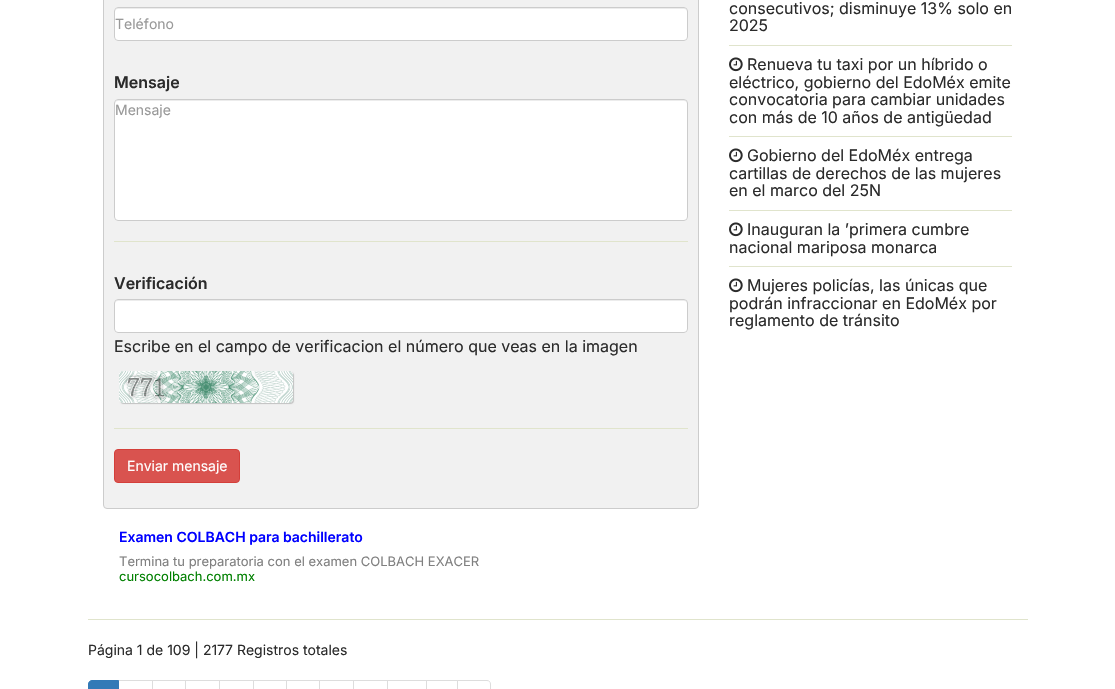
void draw(SkCanvas* canvas) {
	SkPaint fill;
	fill.setAntiAlias(true);
	auto makeFont = [&](const char* family, int weight, float size, bool italic = false) {
		SkFontStyle style(weight, SkFontStyle::kNormal_Width,
			italic ? SkFontStyle::kItalic_Slant : SkFontStyle::kUpright_Slant);
		SkFont result(fontMgr->matchFamilyStyle(family, style), size);
		result.setSubpixel(true);
		return result;
	};
	auto text = [&](const char* s, float x, float y, const SkFont& font) {
		canvas->drawString(s, x, y, font, fill);
	};
	auto box = [&](float l, float t, float r, float b) {
		canvas->drawRect(SkRect::MakeLTRB(l, t, r, b), fill);
	};
	auto roundBox = [&](float l, float t, float r, float b, float radius) {
		canvas->drawRoundRect(SkRect::MakeLTRB(l, t, r, b), radius, radius, fill);
	};
	auto picture = [&](const char* path, float l, float t, float r, float b) {
		auto image = SkImages::DeferredFromEncodedData(SkData::MakeFromFileName(path));
		canvas->drawImageRect(image, SkRect::MakeLTRB(l, t, r, b), SkSamplingOptions());
	};
	canvas->clear(0xFFFFFFFF);
	fill.setColor(0xFFF1F1F1);
	canvas->drawRoundRect(SkRect::MakeLTRB(103.5f, -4.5f, 698.5f, 508.5f), 3.5f, 3.5f, fill);
	fill.setStyle(SkPaint::kStroke_Style);
	fill.setStrokeWidth(1);
	fill.setColor(0xFFCCCCCC);
	canvas->drawRoundRect(SkRect::MakeLTRB(103.5f, -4.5f, 698.5f, 508.5f), 3.5f, 3.5f, fill);
	fill.setStyle(SkPaint::kFill_Style);
	fill.setColor(0xFFFFFFFF);
	roundBox(114, 7, 688, 41, 4);
	fill.setColor(0xFFECECEC);
	canvas->drawPath(SkPathBuilder().moveTo(118, 9).lineTo(684, 9).cubicTo(686, 9, 687, 10, 687, 12).lineTo(687, 11).cubicTo(687, 9, 686, 8, 684, 8).lineTo(118, 8).cubicTo(116, 8, 115, 9, 115, 11).lineTo(115, 12).cubicTo(115, 10, 116, 9, 118, 9).close().detach(), fill);
	fill.setStyle(SkPaint::kStroke_Style);
	fill.setColor(0xFFCCCCCC);
	canvas->drawRoundRect(SkRect::MakeLTRB(114.5f, 7.5f, 687.5f, 40.5f), 3.5f, 3.5f, fill);
	fill.setStyle(SkPaint::kFill_Style);
	fill.setColor(0xFFFFFFFF);
	roundBox(114, 99, 688, 221, 4);
	fill.setColor(0xFFECECEC);
	canvas->drawPath(SkPathBuilder().moveTo(118, 101).lineTo(684, 101).cubicTo(686, 101, 687, 102, 687, 104).lineTo(687, 103).cubicTo(687, 101, 686, 100, 684, 100).lineTo(118, 100).cubicTo(116, 100, 115, 101, 115, 103).lineTo(115, 104).cubicTo(115, 102, 116, 101, 118, 101).close().detach(), fill);
	fill.setStyle(SkPaint::kStroke_Style);
	fill.setColor(0xFFCCCCCC);
	canvas->drawRoundRect(SkRect::MakeLTRB(114.5f, 99.5f, 687.5f, 220.5f), 3.5f, 3.5f, fill);
	fill.setStyle(SkPaint::kFill_Style);
	fill.setColor(0xFFE0E4CC);
	box(114, 241, 688, 242);
	fill.setColor(0xFFFFFFFF);
	roundBox(114, 299, 688, 333, 4);
	fill.setColor(0xFFECECEC);
	canvas->drawPath(SkPathBuilder().moveTo(118, 301).lineTo(684, 301).cubicTo(686, 301, 687, 302, 687, 304).lineTo(687, 303).cubicTo(687, 301, 686, 300, 684, 300).lineTo(118, 300).cubicTo(116, 300, 115, 301, 115, 303).lineTo(115, 304).cubicTo(115, 302, 116, 301, 118, 301).close().detach(), fill);
	fill.setStyle(SkPaint::kStroke_Style);
	fill.setColor(0xFFCCCCCC);
	canvas->drawRoundRect(SkRect::MakeLTRB(114.5f, 299.5f, 687.5f, 332.5f), 3.5f, 3.5f, fill);
	fill.setStyle(SkPaint::kFill_Style);
	fill.setColor(0x33000000);
	fill.setMaskFilter(SkMaskFilter::MakeBlur(kNormal_SkBlurStyle, 0.5f));
	canvas->drawRoundRect(SkRect::MakeLTRB(120, 372, 294, 404), 4, 4, fill);
	fill.setMaskFilter(nullptr);
	picture("image0.png", 119, 371, 293, 403);
	fill.setColor(0xFFE0E4CC);
	box(114, 428, 688, 429);
	fill.setColor(0xFFD9534F);
	canvas->drawRoundRect(SkRect::MakeLTRB(114.5f, 449.5f, 239.5f, 482.5f), 3.5f, 3.5f, fill);
	fill.setStyle(SkPaint::kStroke_Style);
	fill.setColor(0xFFD43F3A);
	canvas->drawRoundRect(SkRect::MakeLTRB(114.5f, 449.5f, 239.5f, 482.5f), 3.5f, 3.5f, fill);
	fill.setStyle(SkPaint::kFill_Style);
	fill.setColor(0xFFE0E4CC);
	box(729, 45, 1012, 46);
	picture("image1.png", 729, 57, 743, 72);
	box(729, 136, 1012, 137);
	picture("image1.png", 729, 148, 743, 163);
	box(729, 210, 1012, 211);
	picture("image1.png", 729, 222, 743, 237);
	box(729, 266, 1012, 267);
	picture("image1.png", 729, 278, 743, 293);
	box(88, 619, 1028, 620);
	fill.setStyle(SkPaint::kStroke_Style);
	fill.setColor(0xFFDDDDDD);
	canvas->drawRect(SkRect::MakeLTRB(118.5f, 680.5f, 152.5f, 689.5f), fill);
	fill.setStyle(SkPaint::kFill_Style);
	fill.setColor(0xFF337AB7);
	canvas->drawPath(SkPathBuilder().moveTo(92, 680.5f).lineTo(118.5f, 680.5f).lineTo(118.5f, 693.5f).lineTo(92, 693.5f).cubicTo(90, 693.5f, 88.5f, 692, 88.5f, 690).lineTo(88.5f, 684).cubicTo(88.5f, 682, 90, 680.5f, 92, 680.5f).close().detach(), fill);
	fill.setStyle(SkPaint::kStroke_Style);
	canvas->drawPath(SkPathBuilder().moveTo(92, 680.5f).lineTo(118.5f, 680.5f).lineTo(118.5f, 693.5f).lineTo(92, 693.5f).cubicTo(90, 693.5f, 88.5f, 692, 88.5f, 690).lineTo(88.5f, 684).cubicTo(88.5f, 682, 90, 680.5f, 92, 680.5f).close().detach(), fill);
	fill.setColor(0xFFDDDDDD);
	canvas->drawRect(SkRect::MakeLTRB(152.5f, 680.5f, 185.5f, 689.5f), fill);
	canvas->drawRect(SkRect::MakeLTRB(185.5f, 680.5f, 219.5f, 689.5f), fill);
	canvas->drawRect(SkRect::MakeLTRB(219.5f, 680.5f, 253.5f, 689.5f), fill);
	canvas->drawRect(SkRect::MakeLTRB(253.5f, 680.5f, 286.5f, 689.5f), fill);
	canvas->drawRect(SkRect::MakeLTRB(286.5f, 680.5f, 319.5f, 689.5f), fill);
	canvas->drawRect(SkRect::MakeLTRB(319.5f, 680.5f, 353.5f, 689.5f), fill);
	canvas->drawRect(SkRect::MakeLTRB(353.5f, 680.5f, 387.5f, 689.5f), fill);
	canvas->drawRect(SkRect::MakeLTRB(387.5f, 680.5f, 426.5f, 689.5f), fill);
	canvas->drawRect(SkRect::MakeLTRB(426.5f, 680.5f, 457.5f, 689.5f), fill);
	fill.setStyle(SkPaint::kFill_Style);
	fill.setColor(0xFFFFFFFF);
	canvas->drawPath(SkPathBuilder().moveTo(457.5f, 680.5f).lineTo(487, 680.5f).cubicTo(489, 680.5f, 490.5f, 682, 490.5f, 684).lineTo(490.5f, 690).cubicTo(490.5f, 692, 489, 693.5f, 487, 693.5f).lineTo(457.5f, 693.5f).close().detach(), fill);
	fill.setStyle(SkPaint::kStroke_Style);
	fill.setColor(0xFFDDDDDD);
	canvas->drawPath(SkPathBuilder().moveTo(457.5f, 680.5f).lineTo(487, 680.5f).cubicTo(489, 680.5f, 490.5f, 682, 490.5f, 684).lineTo(490.5f, 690).cubicTo(490.5f, 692, 489, 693.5f, 487, 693.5f).lineTo(457.5f, 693.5f).close().detach(), fill);
	auto font1 = makeFont("Inter", 400, 14);
	fill.setStyle(SkPaint::kFill_Style);
	fill.setColor(0xFF999999);
	text("Teléfono", 115, 29, font1);
	auto font2 = makeFont("Inter", 600, 16);
	fill.setColor(0xFF2B2B2B);
	text("Mensaje", 114, 88, font2);
	fill.setColor(0xFF999999);
	text("Mensaje", 115, 115, font1);
	fill.setColor(0xFF2B2B2B);
	text("Verificación", 114, 289, font2);
	auto font3 = makeFont("Inter", 400, 16);
	text("Escribe en el campo de verificacion el número que veas en la imagen", 114, 352, font3);
	fill.setColor(0xFFFFFFFF);
	text("Enviar mensaje", 127, 471, font1);
	auto font4 = makeFont("Inter", 600, 14);
	fill.setColor(0xFF0000FF);
	text("Examen COLBACH para bachillerato", 119, 542, font4);
	auto font5 = makeFont("Inter", 400, 13);
	fill.setColor(0xFF808080);
	text("Termina tu preparatoria con el examen COLBACH EXACER", 119, 566, font5);
	fill.setColor(0xFF008000);
	text("cursocolbach.com.mx", 119, 581, font5);
	fill.setColor(0xFF2B2B2B);
	text("consecutivos; disminuye 13% solo en", 729, 14, font3);
	text("2025", 729, 31, font3);
	text("Renueva tu taxi por un híbrido o", 747, 70, font3);
	text("eléctrico, gobierno del EdoMéx emite", 729, 88, font3);
	text("convocatoria para cambiar unidades", 729, 105, font3);
	text("con más de 10 años de antigüedad", 729, 123, font3);
	text("Gobierno del EdoMéx entrega", 747, 161, font3);
	text("cartillas de derechos de las mujeres", 729, 179, font3);
	text("en el marco del 25N", 729, 196, font3);
	text("Inauguran la ’primera cumbre", 747, 235, font3);
	text("nacional mariposa monarca", 729, 253, font3);
	text("Mujeres policías, las únicas que", 747, 291, font3);
	text("podrán infraccionar en EdoMéx por", 729, 309, font3);
	text("reglamento de tránsito", 729, 326, font3);
	text("Página 1 de 109 | 2177 Registros totales", 88, 655, font1);
}
